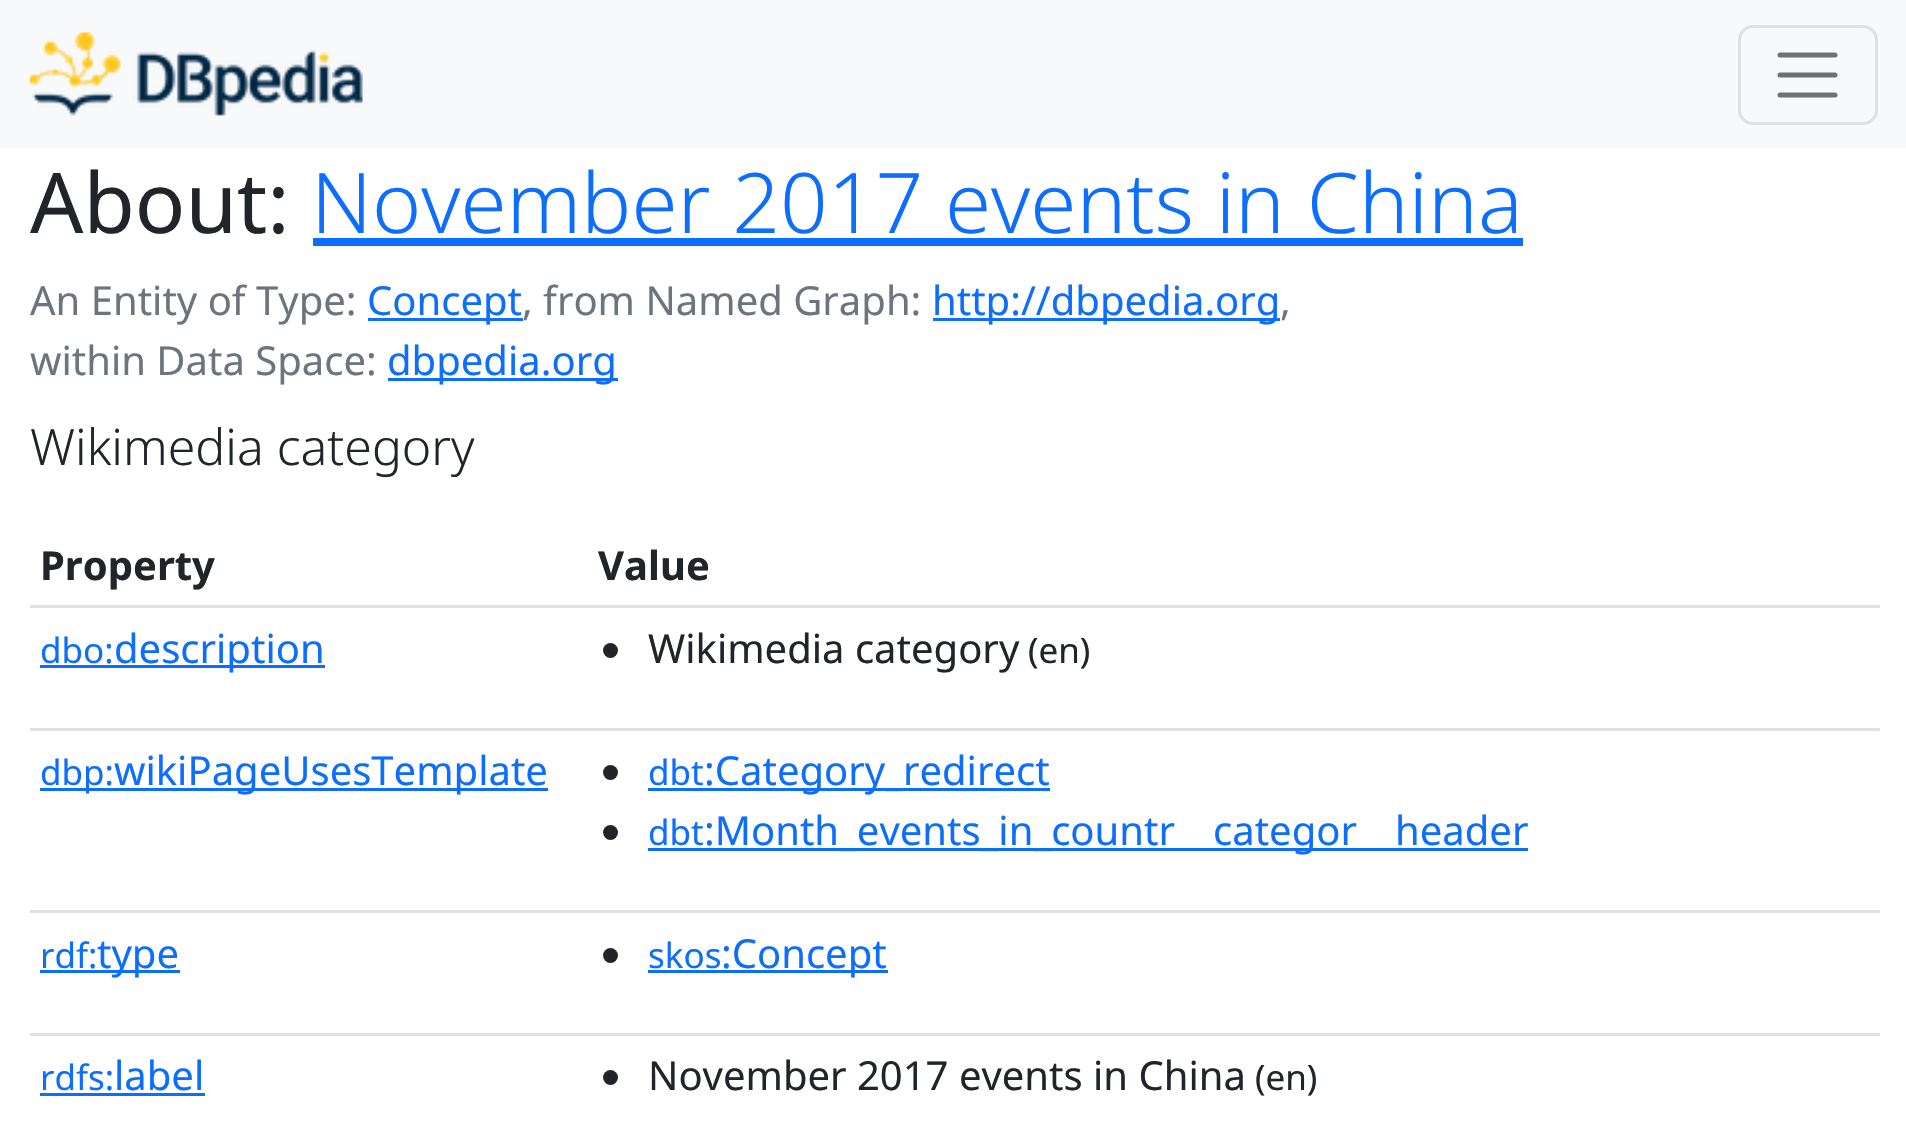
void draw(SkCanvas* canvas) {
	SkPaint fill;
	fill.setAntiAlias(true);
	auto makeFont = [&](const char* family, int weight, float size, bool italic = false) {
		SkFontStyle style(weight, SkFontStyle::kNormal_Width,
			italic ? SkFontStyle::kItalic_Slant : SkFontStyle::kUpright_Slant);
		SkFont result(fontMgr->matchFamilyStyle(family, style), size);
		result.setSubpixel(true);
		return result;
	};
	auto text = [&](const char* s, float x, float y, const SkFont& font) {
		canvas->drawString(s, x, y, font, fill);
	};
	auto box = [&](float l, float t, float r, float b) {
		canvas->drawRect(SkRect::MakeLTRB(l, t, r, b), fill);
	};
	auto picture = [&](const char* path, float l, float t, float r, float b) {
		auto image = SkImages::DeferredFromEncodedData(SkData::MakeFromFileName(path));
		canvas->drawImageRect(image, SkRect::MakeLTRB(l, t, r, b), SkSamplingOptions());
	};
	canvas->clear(0xFFFFFFFF);
	fill.setColor(0xFFF8F9FA);
	box(0, 0, 1906, 148);
	picture("image0.png", 30, 32, 363, 116);
	fill.setStyle(SkPaint::kStroke_Style);
	fill.setStrokeWidth(3);
	fill.setColor(0xFFDFE0E1);
	canvas->drawRoundRect(SkRect::MakeLTRB(1739.5f, 26.5f, 1876.5f, 123.5f), 13.5f, 13.5f, fill);
	fill.setStrokeWidth(5);
	fill.setStrokeCap(SkPaint::kRound_Cap);
	fill.setColor(0xFF707071);
	canvas->drawPath(SkPathBuilder().moveTo(1780, 55).lineTo(1835, 55).moveTo(1780, 75).lineTo(1835, 75).moveTo(1780, 95).lineTo(1835, 95).detach(), fill);
	fill.setStyle(SkPaint::kFill_Style);
	fill.setColor(0xFF0D6EFD);
	box(313, 238, 1523, 246);
	box(368, 318, 523, 321);
	box(933, 318, 1280, 321);
	box(388, 378, 618, 381);
	fill.setColor(0xFFDEE2E6);
	box(30, 605, 1880, 608);
	fill.setColor(0xFF0D6EFD);
	box(40, 665, 325, 668);
	fill.setColor(0xFFDEE2E6);
	box(30, 728, 1880, 731);
	fill.setColor(0xFF212529);
	canvas->drawCircle(610.5f, 650.5f, 7.5f, fill);
	fill.setColor(0xFF0D6EFD);
	box(40, 788, 548, 791);
	fill.setColor(0xFFDEE2E6);
	box(30, 910, 1880, 913);
	fill.setColor(0xFF212529);
	canvas->drawCircle(610.5f, 772.5f, 7.5f, fill);
	fill.setColor(0xFF0D6EFD);
	box(648, 788, 1050, 791);
	fill.setColor(0xFF212529);
	canvas->drawCircle(610.5f, 832.5f, 7.5f, fill);
	fill.setColor(0xFF0D6EFD);
	box(648, 848, 1528, 851);
	box(40, 970, 180, 973);
	fill.setColor(0xFFDEE2E6);
	box(30, 1033, 1880, 1036);
	fill.setColor(0xFF212529);
	canvas->drawCircle(610.5f, 955.5f, 7.5f, fill);
	fill.setColor(0xFF0D6EFD);
	box(648, 970, 888, 973);
	box(40, 1093, 205, 1096);
	fill.setColor(0xFF212529);
	canvas->drawCircle(610.5f, 1077.5f, 7.5f, fill);
	auto font1 = makeFont("Noto Sans", 400, 83.6f);
	text("About:", 30, 233, font1);
	auto font2 = makeFont("Noto Sans", 300, 83.6f);
	fill.setColor(0xFF0D6EFD);
	text("November 2017 events in China", 311, 233, font2);
	auto font3 = makeFont("Noto Sans", 400, 40);
	fill.setColor(0xFF6C757D);
	text("An Entity of Type:", 30, 315, font3);
	fill.setColor(0xFF0D6EFD);
	text("Concept", 367, 315, font3);
	fill.setColor(0xFF6C757D);
	text(", from Named Graph:", 522, 315, font3);
	fill.setColor(0xFF0D6EFD);
	text("http://dbpedia.org", 932, 315, font3);
	fill.setColor(0xFF6C757D);
	text(",", 1280, 315, font3);
	text("within Data Space:", 30, 375, font3);
	fill.setColor(0xFF0D6EFD);
	text("dbpedia.org", 387, 375, font3);
	auto font4 = makeFont("Noto Sans", 300, 50);
	fill.setColor(0xFF212529);
	text("Wikimedia category", 30, 465, font4);
	auto font5 = makeFont("Noto Sans", 700, 40);
	text("Property", 40, 580, font5);
	text("Value", 598, 580, font5);
	auto font6 = makeFont("Noto Sans", 400, 35);
	fill.setColor(0xFF0D6EFD);
	text("dbo:", 40, 663, font6);
	text("description", 114, 663, font3);
	fill.setColor(0xFF212529);
	text("Wikimedia category", 648, 663, font3);
	text("(en)", 1028, 663, font6);
	fill.setColor(0xFF0D6EFD);
	text("dbp:", 40, 785, font6);
	text("wikiPageUsesTemplate", 114, 785, font3);
	text("dbt", 648, 785, font6);
	text(":Category_redirect", 704, 785, font3);
	text("dbt", 648, 845, font6);
	text(":Month_events_in_countr", 704, 845, font3);
	text("categor", 1213, 845, font3);
	text("header", 1395, 845, font3);
	text("rdf:", 40, 968, font6);
	text("type", 97, 968, font3);
	text("skos", 648, 968, font6);
	text(":Concept", 721, 968, font3);
	text("rdfs:", 40, 1090, font6);
	text("label", 114, 1090, font3);
	fill.setColor(0xFF212529);
	text("November 2017 events in China", 648, 1090, font3);
	text("(en)", 1255, 1090, font6);
}
